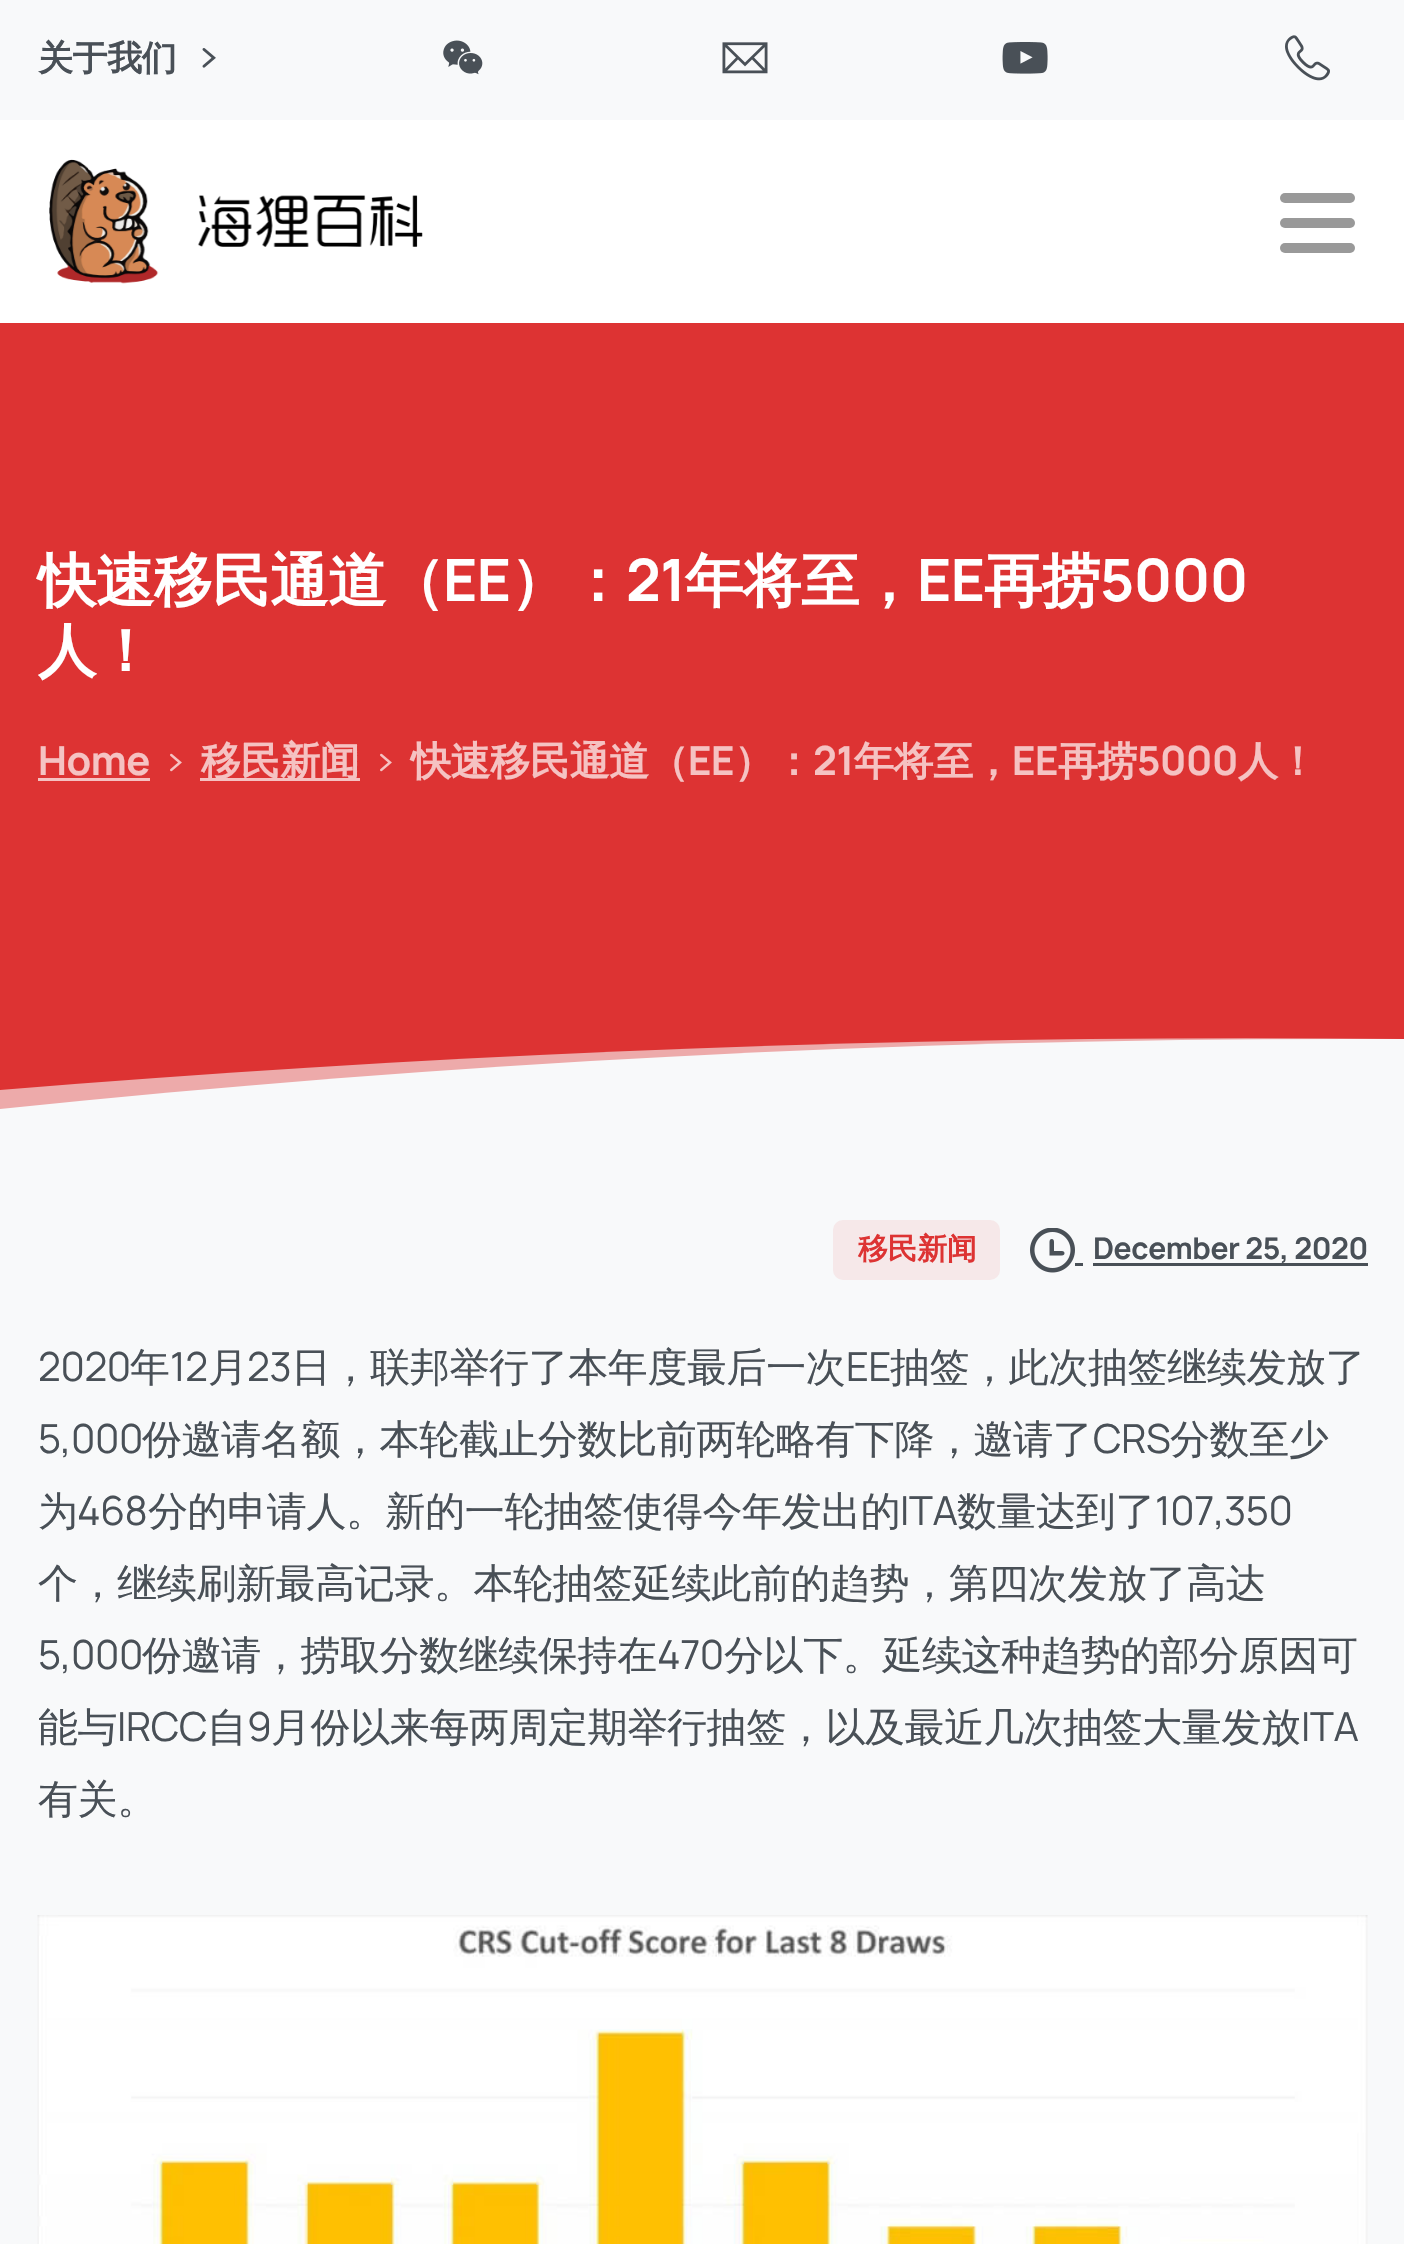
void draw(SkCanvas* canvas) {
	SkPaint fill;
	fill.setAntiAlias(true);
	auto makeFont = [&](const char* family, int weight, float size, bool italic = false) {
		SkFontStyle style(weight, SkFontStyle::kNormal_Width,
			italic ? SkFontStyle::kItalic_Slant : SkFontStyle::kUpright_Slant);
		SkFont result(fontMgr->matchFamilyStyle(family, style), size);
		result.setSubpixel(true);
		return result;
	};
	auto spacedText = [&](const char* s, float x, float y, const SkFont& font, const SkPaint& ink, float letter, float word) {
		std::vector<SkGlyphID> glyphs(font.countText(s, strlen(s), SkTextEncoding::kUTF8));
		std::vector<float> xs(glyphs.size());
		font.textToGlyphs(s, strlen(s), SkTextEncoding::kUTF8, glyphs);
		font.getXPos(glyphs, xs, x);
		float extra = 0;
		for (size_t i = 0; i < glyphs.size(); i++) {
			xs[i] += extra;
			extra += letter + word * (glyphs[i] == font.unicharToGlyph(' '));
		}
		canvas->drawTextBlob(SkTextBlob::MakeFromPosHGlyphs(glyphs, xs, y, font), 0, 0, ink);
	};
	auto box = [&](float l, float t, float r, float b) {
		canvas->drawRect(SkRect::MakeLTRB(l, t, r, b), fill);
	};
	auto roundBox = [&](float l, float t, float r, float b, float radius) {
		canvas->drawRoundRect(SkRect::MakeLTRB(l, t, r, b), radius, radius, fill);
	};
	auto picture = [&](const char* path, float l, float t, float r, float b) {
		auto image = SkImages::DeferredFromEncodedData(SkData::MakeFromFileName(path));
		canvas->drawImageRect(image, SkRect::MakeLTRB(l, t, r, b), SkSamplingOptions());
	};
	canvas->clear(0xFFDD3333);
	fill.setColor(0xFFF8F9FA);
	box(0, 0, 1404, 120);
	picture("image0.png", 202, 48, 216, 68);
	picture("image1.png", 443, 40, 483, 75);
	picture("image2.png", 722, 42, 768, 74);
	picture("image3.png", 1002, 42, 1048, 74);
	picture("image4.png", 1285, 35, 1330, 81);
	fill.setColor(0xFFFFFFFF);
	box(0, 120, 1404, 323);
	picture("image5.png", 49, 159, 423, 284);
	fill.setColor(0xFF999999);
	roundBox(1280, 218, 1355, 228, 5);
	roundBox(1280, 193, 1355, 203, 5);
	roundBox(1280, 243, 1355, 253, 5);
	fill.setColor(0xFFF5C2C2);
	box(38, 778, 150, 781);
	picture("image6.png", 170, 753, 182, 772);
	box(200, 778, 360, 781);
	picture("image6.png", 380, 753, 392, 772);
	fill.setColor(0xFFEDAAAA);
	canvas->drawPath(SkPathBuilder().moveTo(0, 1090).cubicTo(469, 1051, 937, 1034, 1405, 1039).lineTo(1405, 1112).lineTo(0, 1112).close().detach(), fill);
	fill.setColor(0xFFF8F9FA);
	canvas->drawPath(SkPathBuilder().moveTo(0, 1109).cubicTo(469, 1060, 937, 1037, 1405, 1039).lineTo(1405, 1112).lineTo(0, 1112).close().detach(), fill);
	box(0, 1112, 1404, 2244);
	fill.setColor(0xFFF6E8E9);
	roundBox(833, 1220, 1000, 1280, 10);
	picture("image7.png", 1030, 1228, 1075, 1273);
	fill.setColor(0xFF495057);
	box(1093, 1263, 1368, 1266);
	box(1075, 1263, 1083, 1266);
	picture("image8.png", 37, 1915, 1368, 2244);
	auto font1 = makeFont("WenQuanYi Zen Hei", 700, 35);
	spacedText("关于我们", 38, 70, font1, fill, -0.4f, 0);
	auto font2 = makeFont("WenQuanYi Zen Hei", 700, 58.5f);
	fill.setColor(0xFFFFFFFF);
	spacedText("快速移民通道（", 38, 601, font2, fill, -0.5f, 0);
	auto font3 = makeFont("Manrope", 700, 58.5f);
	spacedText("EE", 443, 601, font3, fill, -0.5f, 0);
	spacedText("）：", 510, 601, font2, fill, -0.5f, 0);
	spacedText("21", 626, 601, font3, fill, -0.5f, 0);
	spacedText("年将至，", 685, 601, font2, fill, -0.5f, 0);
	spacedText("EE", 917, 601, font3, fill, -0.5f, 0);
	spacedText("再捞", 984, 601, font2, fill, -0.5f, 0);
	spacedText("5000", 1100, 601, font3, fill, -0.5f, 0);
	spacedText("人！", 38, 671, font2, fill, -0.5f, 0);
	auto font4 = makeFont("Manrope", 700, 40);
	fill.setColor(0xFFF5C2C2);
	spacedText("Home", 38, 775, font4, fill, -0.4f, 0);
	auto font5 = makeFont("WenQuanYi Zen Hei", 700, 40);
	spacedText("移民新闻", 201, 775, font5, fill, -0.4f, 0);
	spacedText("快速移民通道（", 411, 775, font5, fill, -0.4f, 0);
	spacedText("EE", 688, 775, font4, fill, -0.4f, 0);
	spacedText("）：", 734, 775, font5, fill, -0.4f, 0);
	spacedText("21", 813, 775, font4, fill, -0.4f, 0);
	spacedText("年将至，", 854, 775, font5, fill, -0.4f, 0);
	spacedText("EE", 1012, 775, font4, fill, -0.4f, 0);
	spacedText("再捞", 1058, 775, font5, fill, -0.4f, 0);
	spacedText("5000", 1137, 775, font4, fill, -0.4f, 0);
	spacedText("人！", 1238, 775, font5, fill, -0.4f, 0);
	auto font6 = makeFont("WenQuanYi Zen Hei", 700, 30);
	fill.setColor(0xFFDD3333);
	spacedText("移民新闻", 858, 1259, font6, fill, -0.4f, 0);
	auto font7 = makeFont("Manrope", 700, 30);
	fill.setColor(0xFF495057);
	spacedText("December 25, 2020", 1093, 1259, font7, fill, -0.4f, 0);
	auto font8 = makeFont("Manrope", 400, 40);
	spacedText("2020", 38, 1381, font8, fill, -0.4f, 0);
	auto font9 = makeFont("WenQuanYi Zen Hei", 500, 40);
	spacedText("年", 130, 1381, font9, fill, -0.4f, 0);
	spacedText("12", 170, 1381, font8, fill, -0.4f, 0);
	spacedText("月", 208, 1381, font9, fill, -0.4f, 0);
	spacedText("23", 247, 1381, font8, fill, -0.4f, 0);
	spacedText("日，联邦举行了本年度最后一次", 291, 1381, font9, fill, -0.4f, 0);
	spacedText("EE", 846, 1381, font8, fill, -0.4f, 0);
	spacedText("抽签，此次抽签继续发放了", 890, 1381, font9, fill, -0.4f, 0);
	spacedText("5,000", 38, 1453, font8, fill, -0.4f, 0);
	spacedText("份邀请名额，本轮截止分数比前两轮略有下降，邀请了", 142, 1453, font9, fill, -0.4f, 0);
	spacedText("CRS", 1093, 1453, font8, fill, -0.4f, 0);
	spacedText("分数至少", 1170, 1453, font9, fill, -0.4f, 0);
	spacedText("为", 38, 1525, font9, fill, -0.4f, 0);
	spacedText("468", 77, 1525, font8, fill, -0.4f, 0);
	spacedText("分的申请人。新的一轮抽签使得今年发出的", 148, 1525, font9, fill, -0.4f, 0);
	spacedText("ITA", 900, 1525, font8, fill, -0.4f, 0);
	spacedText("数量达到了", 957, 1525, font9, fill, -0.4f, 0);
	spacedText("107,350", 1155, 1525, font8, fill, -0.4f, 0);
	spacedText("个，继续刷新最高记录。本轮抽签延续此前的趋势，第四次发放了高达", 38, 1597, font9, fill, -0.4f, 0);
	spacedText("5,000", 38, 1669, font8, fill, -0.4f, 0);
	spacedText("份邀请，捞取分数继续保持在", 142, 1669, font9, fill, -0.4f, 0);
	spacedText("470", 657, 1669, font8, fill, -0.4f, 0);
	spacedText("分以下。延续这种趋势的部分原因可", 724, 1669, font9, fill, -0.4f, 0);
	spacedText("能与", 38, 1741, font9, fill, -0.4f, 0);
	spacedText("IRCC", 117, 1741, font8, fill, -0.4f, 0);
	spacedText("自", 207, 1741, font9, fill, -0.4f, 0);
	spacedText("9", 247, 1741, font8, fill, -0.4f, 0);
	spacedText("月份以来每两周定期举行抽签，以及最近几次抽签大量发放", 271, 1741, font9, fill, -0.4f, 0);
	spacedText("ITA", 1301, 1741, font8, fill, -0.4f, 0);
	spacedText("有关。", 38, 1813, font9, fill, -0.4f, 0);
}
